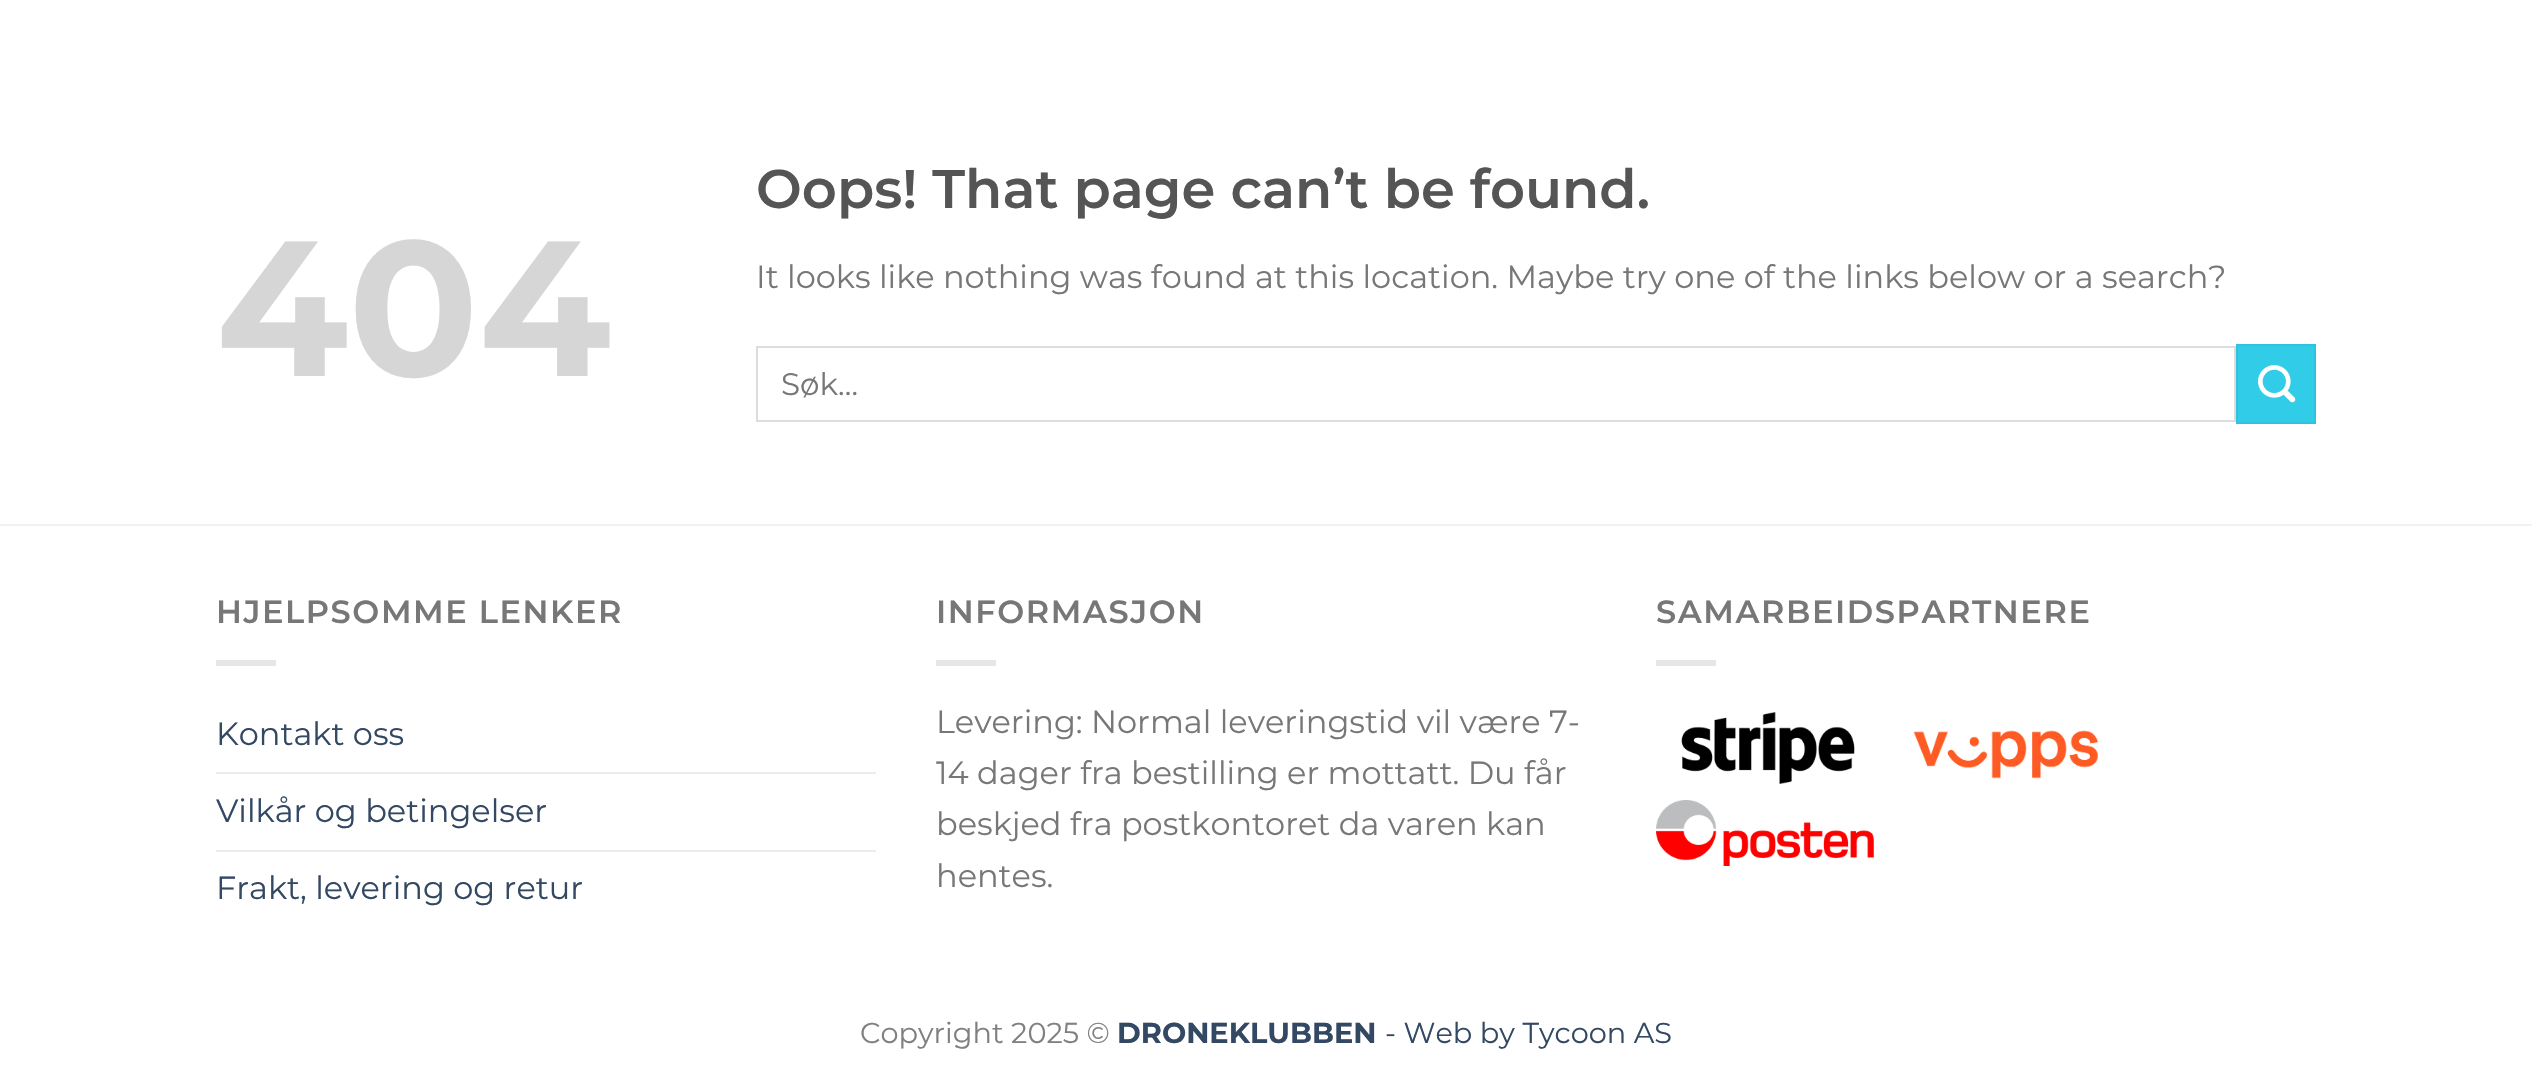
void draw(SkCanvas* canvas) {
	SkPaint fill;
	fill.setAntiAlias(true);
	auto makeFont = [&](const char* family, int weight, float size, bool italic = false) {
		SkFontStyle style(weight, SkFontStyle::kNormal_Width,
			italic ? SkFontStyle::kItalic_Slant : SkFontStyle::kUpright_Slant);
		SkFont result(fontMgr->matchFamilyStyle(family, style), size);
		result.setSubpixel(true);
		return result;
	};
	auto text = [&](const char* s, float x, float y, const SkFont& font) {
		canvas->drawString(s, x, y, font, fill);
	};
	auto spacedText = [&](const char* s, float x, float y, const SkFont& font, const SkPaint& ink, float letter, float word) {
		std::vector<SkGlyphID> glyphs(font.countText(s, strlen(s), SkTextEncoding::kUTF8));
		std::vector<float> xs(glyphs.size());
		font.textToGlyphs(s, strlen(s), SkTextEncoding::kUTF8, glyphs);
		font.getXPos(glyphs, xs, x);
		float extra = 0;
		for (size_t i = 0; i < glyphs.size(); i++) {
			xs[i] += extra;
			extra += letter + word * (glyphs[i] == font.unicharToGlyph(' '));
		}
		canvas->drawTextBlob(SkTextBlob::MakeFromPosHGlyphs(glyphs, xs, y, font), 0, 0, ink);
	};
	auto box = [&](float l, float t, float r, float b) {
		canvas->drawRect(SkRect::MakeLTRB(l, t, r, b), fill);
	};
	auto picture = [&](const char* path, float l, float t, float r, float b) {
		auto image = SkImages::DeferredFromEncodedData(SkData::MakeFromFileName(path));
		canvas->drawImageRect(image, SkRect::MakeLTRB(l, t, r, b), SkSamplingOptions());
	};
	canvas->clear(0xFFFFFFFF);
	fill.setStyle(SkPaint::kStroke_Style);
	fill.setStrokeWidth(2);
	fill.setColor(0xFFDDDDDD);
	canvas->drawRect(SkRect::MakeLTRB(757, 347, 2235, 421), fill);
	fill.setStyle(SkPaint::kFill_Style);
	fill.setColor(0xFF30CCE8);
	canvas->drawRect(SkRect::MakeLTRB(2237, 345, 2315, 423), fill);
	fill.setStyle(SkPaint::kStroke_Style);
	fill.setColor(0xFF2EC2DC);
	canvas->drawRect(SkRect::MakeLTRB(2237, 345, 2315, 423), fill);
	picture("image0.png", 2258, 365, 2296, 403);
	fill.setStyle(SkPaint::kFill_Style);
	fill.setColor(0xFFF2F2F2);
	box(0, 524, 2532, 526);
	fill.setColor(0xFFE6E6E6);
	box(216, 660, 276, 666);
	fill.setColor(0xFFECECEC);
	box(216, 772, 876, 774);
	box(216, 850, 876, 852);
	fill.setColor(0xFFE6E6E6);
	box(936, 660, 996, 666);
	box(1656, 660, 1716, 666);
	picture("image1.png", 1681, 712, 1855, 784);
	picture("image2.png", 1913, 730, 2099, 779);
	picture("image3.png", 1656, 800, 1874, 866);
	auto font1 = makeFont("Montserrat", 700, 192);
	fill.setColor(0xFFD6D6D6);
	text("404", 216, 376, font1);
	auto font2 = makeFont("Montserrat", 600, 54.4f);
	fill.setColor(0xFF555555);
	text("Oops! That page can’t be found.", 756, 208, font2);
	auto font3 = makeFont("Montserrat", 400, 32);
	fill.setColor(0xFF777777);
	text("It looks like nothing was found at this location. Maybe try one of the links below or a search?", 756, 288, font3);
	auto font4 = makeFont("Montserrat", 400, 31);
	text("Søk…", 781, 395, font4);
	auto font5 = makeFont("Montserrat", 600, 32);
	spacedText("HJELPSOMME LENKER", 216, 623, font5, fill, 1.6f, 0);
	fill.setColor(0xFF334862);
	text("Kontakt oss", 216, 745, font3);
	text("Vilkår og betingelser", 216, 822, font3);
	text("Frakt, levering og retur", 216, 899, font3);
	fill.setColor(0xFF777777);
	spacedText("INFORMASJON", 936, 623, font5, fill, 1.6f, 0);
	text("Levering: Normal leveringstid vil være 7-", 936, 733, font3);
	text("14 dager fra bestilling er mottatt. Du får", 936, 784, font3);
	text("beskjed fra postkontoret da varen kan", 936, 835, font3);
	text("hentes.", 936, 887, font3);
	spacedText("SAMARBEIDSPARTNERE", 1656, 623, font5, fill, 1.6f, 0);
	auto font6 = makeFont("Montserrat", 400, 28.75f);
	fill.setColor(0xFF808080);
	text("Copyright 2025 ©", 860, 1043, font6);
	auto font7 = makeFont("Montserrat", 700, 28.75f);
	fill.setColor(0xFF334862);
	text("DRONEKLUBBEN", 1117, 1043, font7);
	text("- Web by Tycoon AS", 1385, 1043, font6);
}
